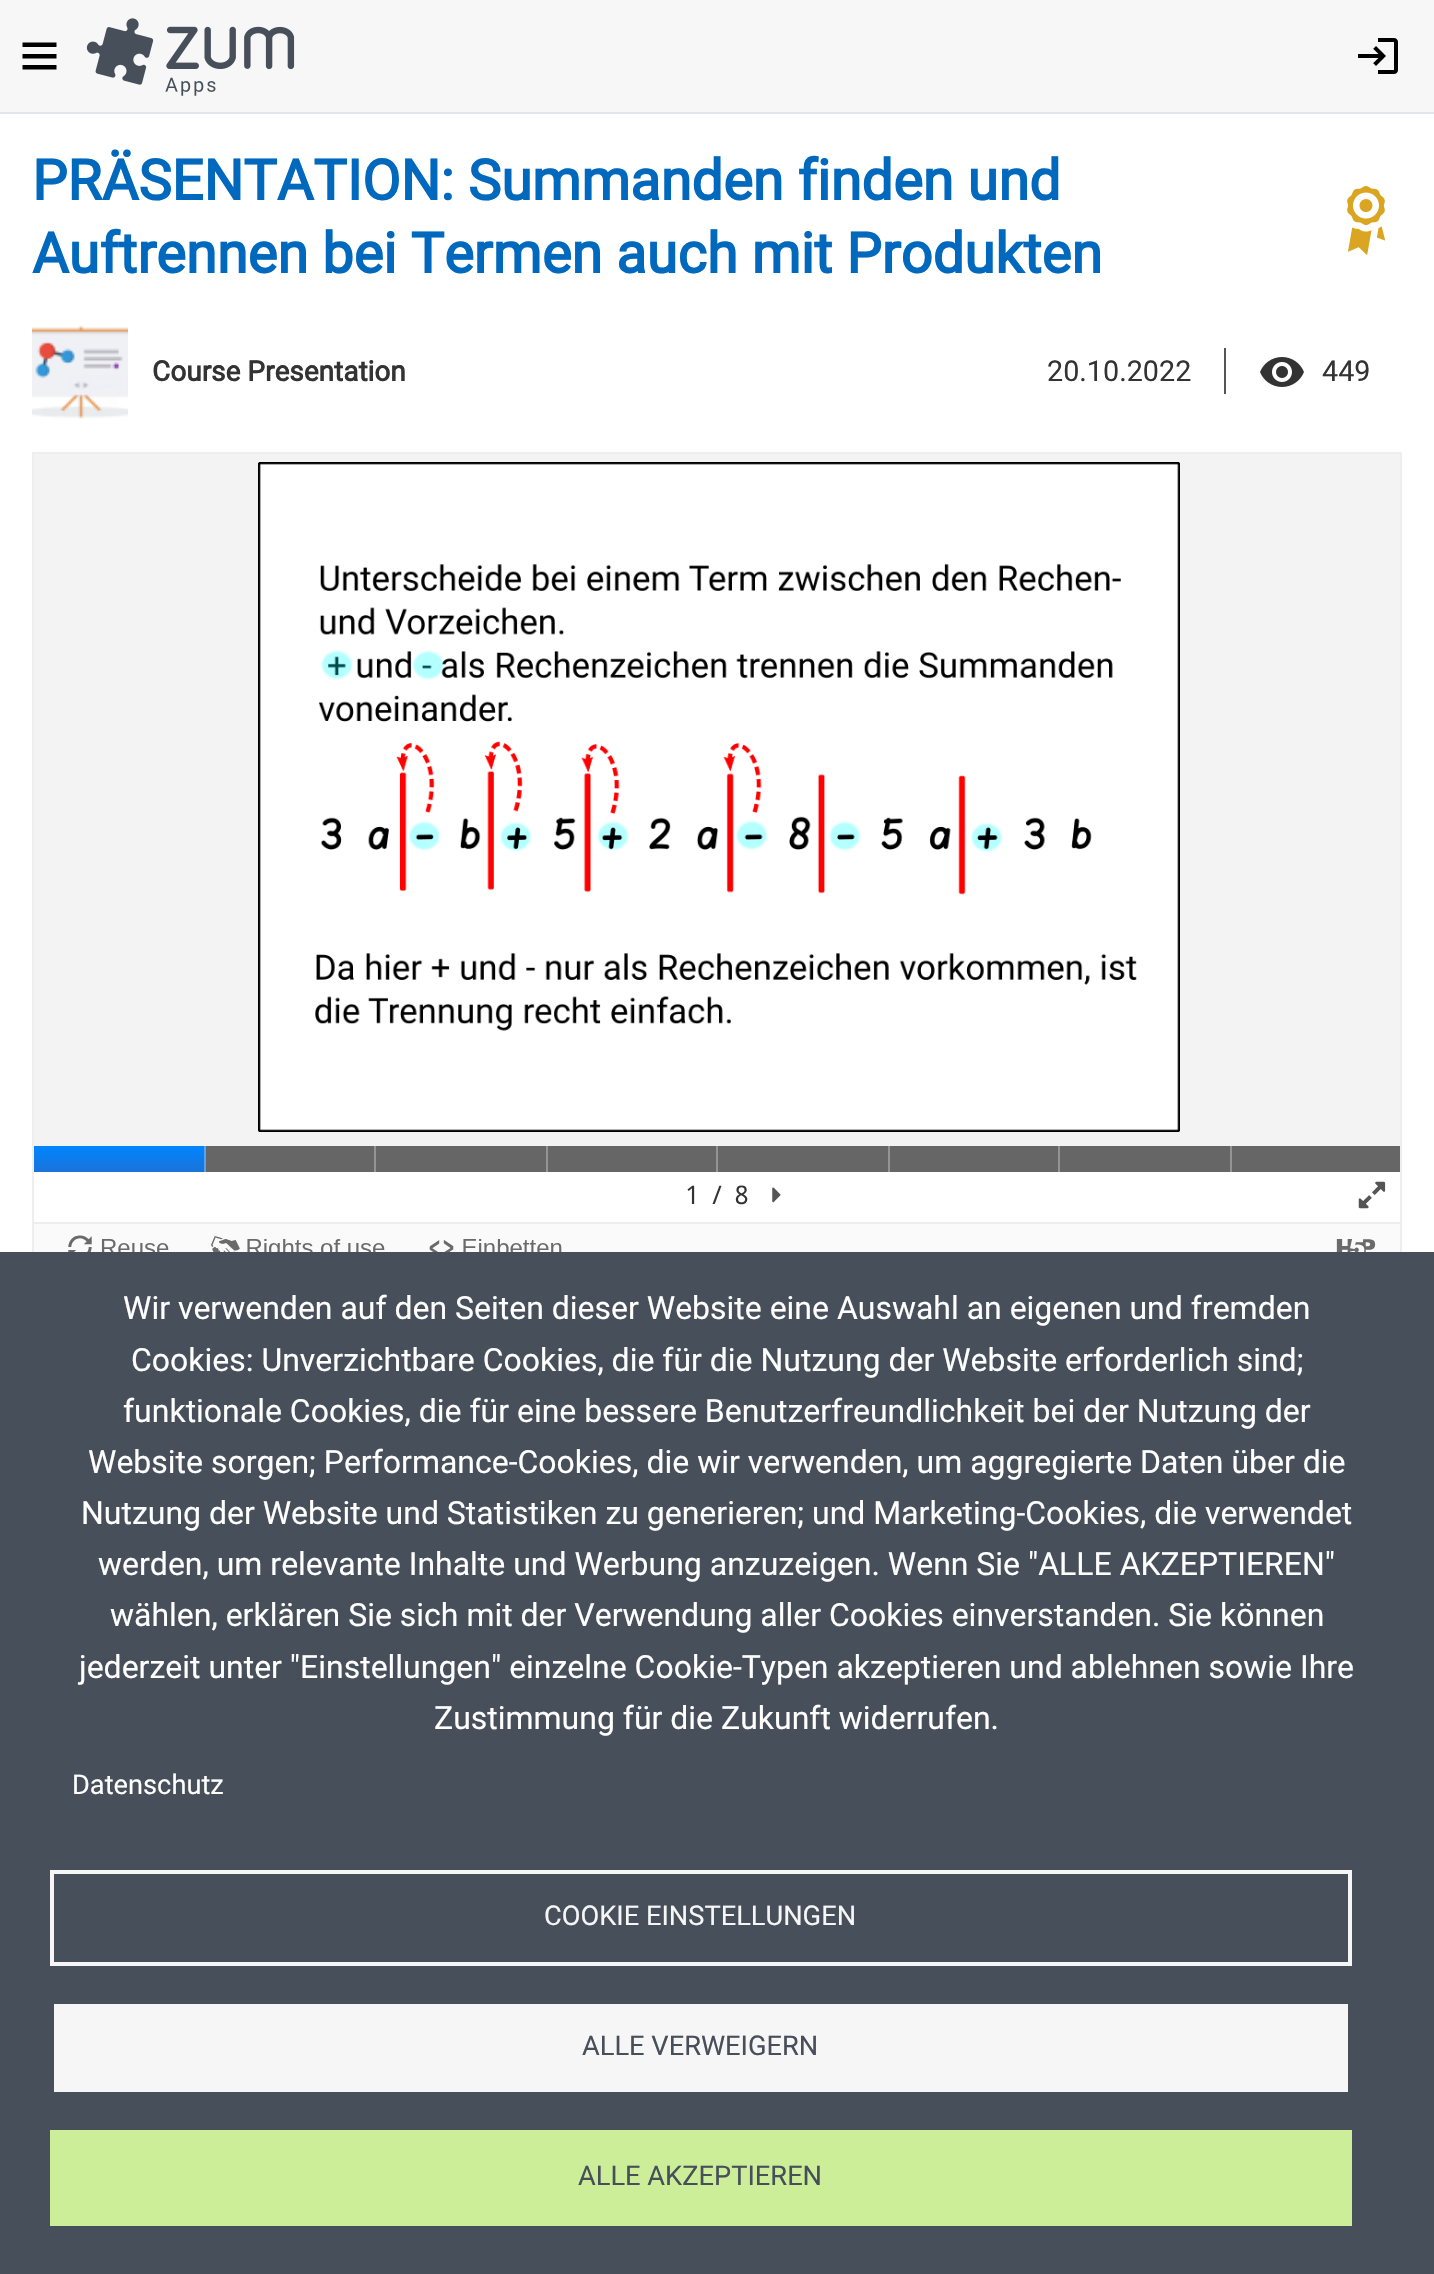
void draw(SkCanvas* canvas) {
	SkPaint fill;
	fill.setAntiAlias(true);
	auto makeFont = [&](const char* family, int weight, float size, bool italic = false) {
		SkFontStyle style(weight, SkFontStyle::kNormal_Width,
			italic ? SkFontStyle::kItalic_Slant : SkFontStyle::kUpright_Slant);
		SkFont result(fontMgr->matchFamilyStyle(family, style), size);
		result.setSubpixel(true);
		return result;
	};
	auto text = [&](const char* s, float x, float y, const SkFont& font) {
		canvas->drawString(s, x, y, font, fill);
	};
	auto box = [&](float l, float t, float r, float b) {
		canvas->drawRect(SkRect::MakeLTRB(l, t, r, b), fill);
	};
	auto picture = [&](const char* path, float l, float t, float r, float b) {
		auto image = SkImages::DeferredFromEncodedData(SkData::MakeFromFileName(path));
		canvas->drawImageRect(image, SkRect::MakeLTRB(l, t, r, b), SkSamplingOptions());
	};
	canvas->clear(0xFFFFFFFF);
	fill.setColor(0xFFF7F7F7);
	box(0, 0, 1434, 112);
	fill.setColor(0xFFE1E6EC);
	box(0, 112, 1434, 114);
	fill.setColor(0xFF000000);
	canvas->drawPath(SkPathBuilder().moveTo(56.5f, 69.5f).lineTo(22.5f, 69.5f).lineTo(22.5f, 65).lineTo(56.5f, 65).close().moveTo(56.5f, 58.5f).lineTo(22.5f, 58.5f).lineTo(22.5f, 54).lineTo(56.5f, 54).close().moveTo(56.5f, 42.5f).lineTo(56.5f, 47).lineTo(22.5f, 47).lineTo(22.5f, 42.5f).close().detach(), fill);
	picture("image0.png", 86, 18, 295, 96);
	picture("image1.png", 1358, 38, 1398, 74);
	picture("image2.png", 1347, 186, 1386, 256);
	picture("image3.png", 32, 325, 128, 419);
	fill.setColor(0xFF555555);
	box(1224, 348, 1226, 394);
	picture("image4.png", 1260, 357, 1304, 387);
	picture("image5.png", 32, 452, 1402, 1252);
	fill.setColor(0xFF474F5A);
	box(0, 1252, 1434, 2274);
	fill.setStyle(SkPaint::kStroke_Style);
	fill.setStrokeWidth(4);
	fill.setColor(0xFFF6F6F7);
	canvas->drawRect(SkRect::MakeLTRB(52, 1872, 1350, 1964), fill);
	fill.setStyle(SkPaint::kFill_Style);
	box(54, 2004, 1348, 2092);
	fill.setColor(0xFFCDEE99);
	box(50, 2130, 1352, 2226);
	auto font1 = makeFont("Roboto", 700, 56);
	fill.setColor(0xFF0068BD);
	text("PRÄSENTATION: Summanden finden und", 32, 200, font1);
	text("Auftrennen bei Termen auch mit Produkten", 32, 273, font1);
	auto font2 = makeFont("Roboto", 700, 28);
	fill.setColor(0xFF333333);
	text("Course Presentation", 152, 381, font2);
	auto font3 = makeFont("Roboto", 400, 28.75f);
	text("20.10.2022", 1047, 381, font3);
	text("449", 1322, 381, font3);
	auto font4 = makeFont("Roboto", 400, 32);
	fill.setColor(0xFFFFFFFF);
	text("Wir verwenden auf den Seiten dieser Website eine Auswahl an eigenen und fremden", 123, 1319, font4);
	text("Cookies: Unverzichtbare Cookies, die für die Nutzung der Website erforderlich sind;", 131, 1371, font4);
	text("funktionale Cookies, die für eine bessere Benutzerfreundlichkeit bei der Nutzung der", 123, 1422, font4);
	text("Website sorgen; Performance-Cookies, die wir verwenden, um aggregierte Daten über die", 88, 1473, font4);
	text("Nutzung der Website und Statistiken zu generieren; und Marketing-Cookies, die verwendet", 81, 1524, font4);
	text("werden, um relevante Inhalte und Werbung anzuzeigen. Wenn Sie \"ALLE AKZEPTIEREN\"", 98, 1575, font4);
	text("wählen, erklären Sie sich mit der Verwendung aller Cookies einverstanden. Sie können", 110, 1626, font4);
	text("jederzeit unter \"Einstellungen\" einzelne Cookie-Typen akzeptieren und ablehnen sowie Ihre", 79, 1678, font4);
	text("Zustimmung für die Zukunft widerrufen.", 434, 1729, font4);
	auto font5 = makeFont("Roboto", 400, 27.25f);
	text("Datenschutz", 72, 1794, font5);
	fill.setColor(0xFFF6F6F7);
	text("COOKIE EINSTELLUNGEN", 544, 1925, font5);
	fill.setColor(0xFF474F5A);
	text("ALLE VERWEIGERN", 582, 2055, font5);
	text("ALLE AKZEPTIEREN", 578, 2185, font5);
}
